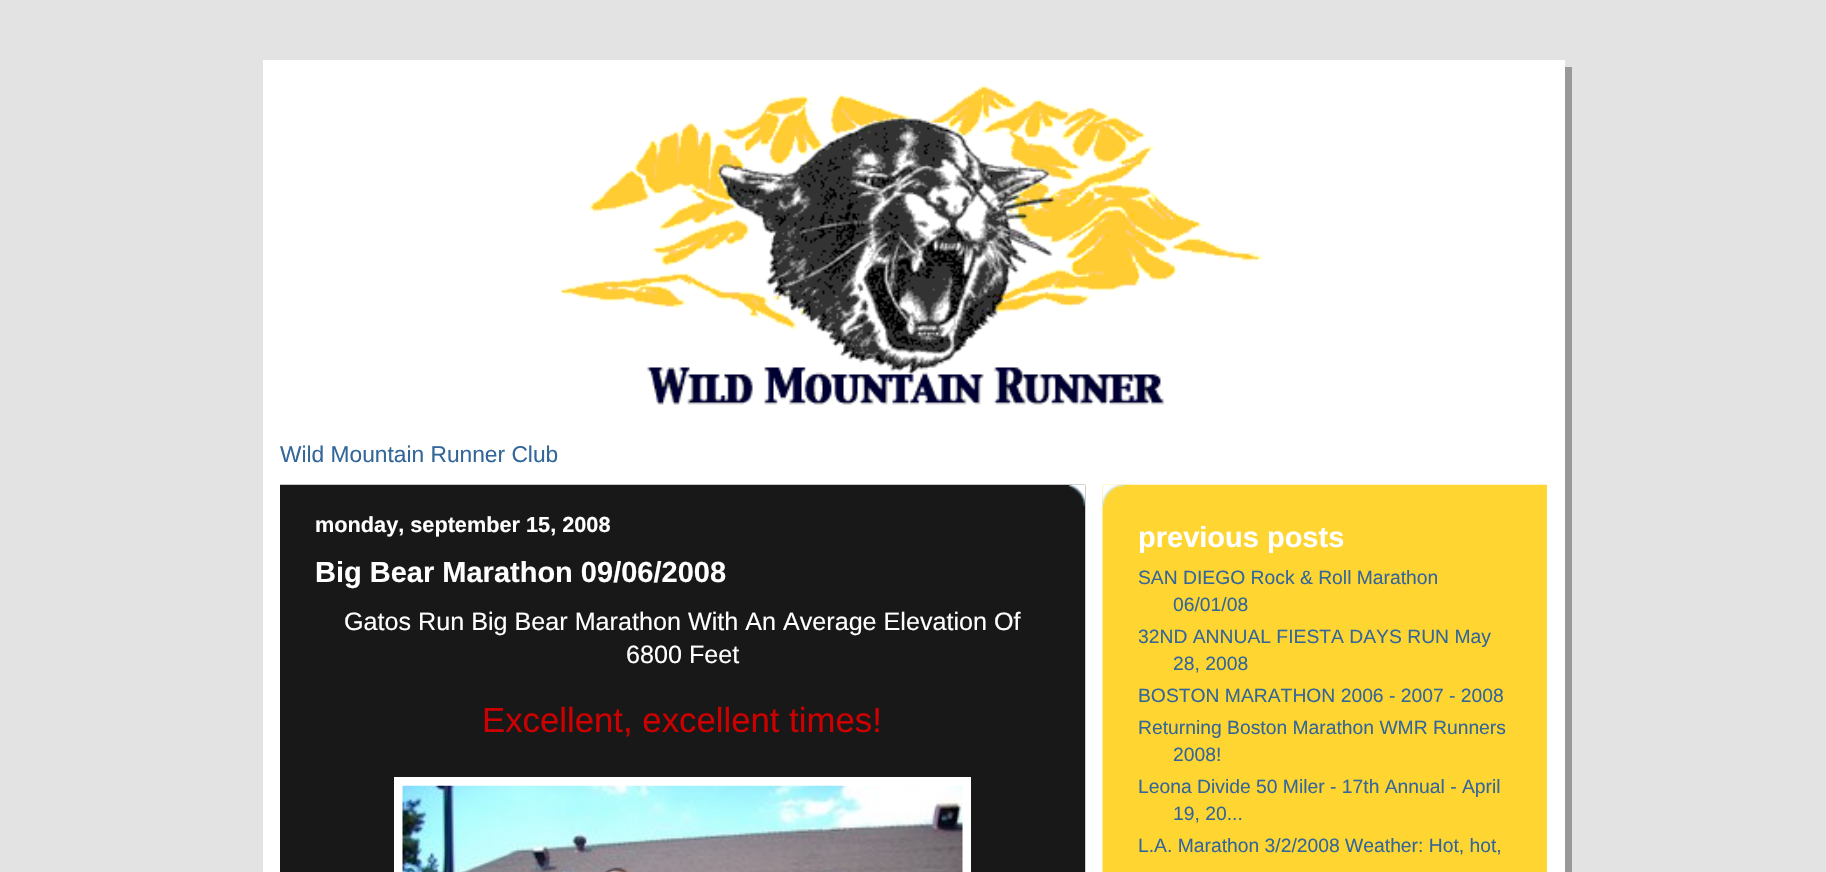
void draw(SkCanvas* canvas) {
	SkPaint fill;
	fill.setAntiAlias(true);
	auto makeFont = [&](const char* family, int weight, float size, bool italic = false) {
		SkFontStyle style(weight, SkFontStyle::kNormal_Width,
			italic ? SkFontStyle::kItalic_Slant : SkFontStyle::kUpright_Slant);
		SkFont result(fontMgr->matchFamilyStyle(family, style), size);
		result.setSubpixel(true);
		return result;
	};
	auto text = [&](const char* s, float x, float y, const SkFont& font) {
		canvas->drawString(s, x, y, font, fill);
	};
	auto box = [&](float l, float t, float r, float b) {
		canvas->drawRect(SkRect::MakeLTRB(l, t, r, b), fill);
	};
	auto picture = [&](const char* path, float l, float t, float r, float b) {
		auto image = SkImages::DeferredFromEncodedData(SkData::MakeFromFileName(path));
		canvas->drawImageRect(image, SkRect::MakeLTRB(l, t, r, b), SkSamplingOptions());
	};
	canvas->clear(0xFFE3E3E3);
	fill.setColor(0xFF999999);
	box(1565, 67, 1572, 872);
	fill.setColor(0xFFFFFFFF);
	box(263, 60, 1565, 872);
	picture("image0.png", 561, 85, 1263, 405);
	picture("image1.png", 280, 484, 1547, 872);
	fill.setColor(0xFF161616);
	box(1084, 485, 1085, 872);
	picture("image2.png", 1068, 484, 1085, 506);
	fill.setStyle(SkPaint::kStroke_Style);
	fill.setStrokeWidth(9);
	fill.setColor(0xFFFFFFFF);
	canvas->drawRect(SkRect::MakeLTRB(398.5f, 781.5f, 966.5f, 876.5f), fill);
	picture("image3.png", 402, 785, 963, 872);
	picture("image4.png", 1102, 484, 1124, 506);
	auto font1 = makeFont("Liberation Sans", 400, 22.75f);
	fill.setStyle(SkPaint::kFill_Style);
	fill.setColor(0xFF336699);
	text("Wild Mountain Runner Club", 280, 462, font1);
	auto font2 = makeFont("Liberation Sans", 700, 21.7f);
	fill.setColor(0xFFFFFFFF);
	text("monday, september 15, 2008", 315, 532, font2);
	auto font3 = makeFont("Liberation Sans", 700, 29);
	text("Big Bear Marathon 09/06/2008", 315, 582, font3);
	auto font4 = makeFont("Liberation Sans", 400, 25.15f);
	text("Gatos Run Big Bear Marathon With An Average Elevation Of", 344, 630, font4);
	text("6800 Feet", 626, 663, font4);
	auto font5 = makeFont("Liberation Sans", 400, 34.75f);
	fill.setColor(0xFFCC0000);
	text("Excellent, excellent times!", 482, 732, font5);
	fill.setColor(0xFFFFFFFF);
	text("previous posts", 1138, 547, font3);
	auto font6 = makeFont("Liberation Sans", 400, 19.3f);
	fill.setColor(0xFF336699);
	text("SAN DIEGO Rock & Roll Marathon", 1138, 584, font6);
	text("06/01/08", 1173, 611, font6);
	text("32ND ANNUAL FIESTA DAYS RUN May", 1138, 643, font6);
	text("28, 2008", 1173, 670, font6);
	text("BOSTON MARATHON 2006 - 2007 - 2008", 1138, 702, font6);
	text("Returning Boston Marathon WMR Runners", 1138, 734, font6);
	text("2008!", 1173, 761, font6);
	text("Leona Divide 50 Miler - 17th Annual - April", 1138, 793, font6);
	text("19, 20...", 1173, 820, font6);
	text("L.A. Marathon 3/2/2008 Weather: Hot, hot,", 1138, 852, font6);
}
